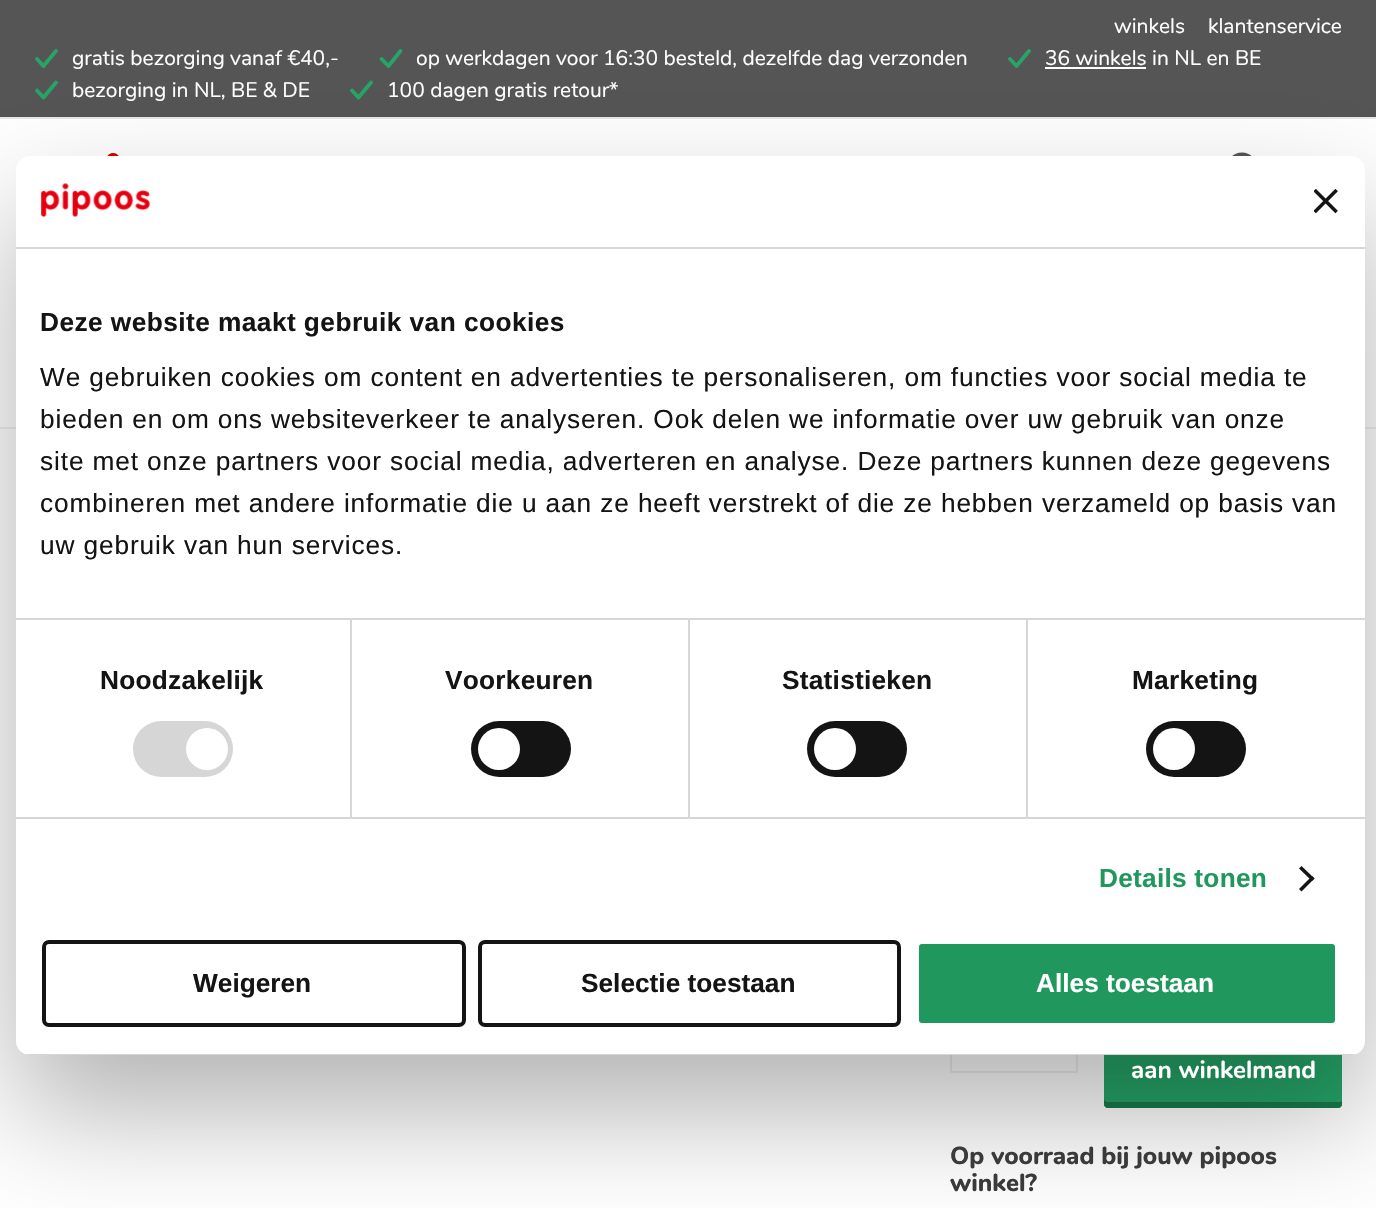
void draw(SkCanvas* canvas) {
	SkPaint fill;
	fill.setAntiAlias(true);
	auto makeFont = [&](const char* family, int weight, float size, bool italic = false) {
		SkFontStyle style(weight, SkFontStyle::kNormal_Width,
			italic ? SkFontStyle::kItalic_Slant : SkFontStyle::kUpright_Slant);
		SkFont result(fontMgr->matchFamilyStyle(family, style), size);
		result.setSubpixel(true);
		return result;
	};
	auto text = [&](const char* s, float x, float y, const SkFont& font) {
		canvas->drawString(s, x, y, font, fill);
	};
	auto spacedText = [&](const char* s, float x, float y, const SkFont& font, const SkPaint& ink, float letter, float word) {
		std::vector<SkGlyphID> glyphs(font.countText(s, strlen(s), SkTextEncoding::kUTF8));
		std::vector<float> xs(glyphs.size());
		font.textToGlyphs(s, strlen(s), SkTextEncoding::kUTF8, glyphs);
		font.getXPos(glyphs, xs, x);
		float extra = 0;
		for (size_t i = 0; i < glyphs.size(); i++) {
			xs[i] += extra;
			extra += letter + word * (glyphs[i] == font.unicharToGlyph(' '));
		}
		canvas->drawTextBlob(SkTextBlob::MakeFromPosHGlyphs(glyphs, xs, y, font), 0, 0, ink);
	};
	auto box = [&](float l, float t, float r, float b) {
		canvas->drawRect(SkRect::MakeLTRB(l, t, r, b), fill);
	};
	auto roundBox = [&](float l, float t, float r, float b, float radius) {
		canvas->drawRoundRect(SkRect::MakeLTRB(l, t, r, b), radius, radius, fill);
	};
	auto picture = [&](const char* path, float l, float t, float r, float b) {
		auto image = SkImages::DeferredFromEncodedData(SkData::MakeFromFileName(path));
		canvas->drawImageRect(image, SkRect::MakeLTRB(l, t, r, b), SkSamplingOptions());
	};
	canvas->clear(0xFFFFFFFF);
	fill.setColor(0xFFEFEFEF);
	box(0, 427, 1376, 429);
	fill.setColor(0xFF555555);
	box(0, 0, 1376, 117);
	fill.setColor(0xFFE8E8E8);
	box(0, 117, 1376, 119);
	fill.setStyle(SkPaint::kStroke_Style);
	fill.setStrokeWidth(3.8f);
	fill.setStrokeCap(SkPaint::kRound_Cap);
	fill.setStrokeJoin(SkPaint::kRound_Join);
	fill.setColor(0xFF25A567);
	canvas->drawPath(SkPathBuilder().moveTo(37, 59).lineTo(43.5f, 66).lineTo(56, 51).detach(), fill);
	canvas->drawPath(SkPathBuilder().moveTo(381.5f, 59).lineTo(388.5f, 66).lineTo(400.5f, 51).detach(), fill);
	canvas->drawPath(SkPathBuilder().moveTo(1010, 59).lineTo(1016.5f, 66).lineTo(1029, 51).detach(), fill);
	fill.setStyle(SkPaint::kFill_Style);
	fill.setColor(0xFFFFFFFF);
	box(1045, 67, 1146, 69);
	fill.setStyle(SkPaint::kStroke_Style);
	fill.setColor(0xFF25A567);
	canvas->drawPath(SkPathBuilder().moveTo(37, 90.5f).lineTo(43.5f, 97.5f).lineTo(56, 82.5f).detach(), fill);
	canvas->drawPath(SkPathBuilder().moveTo(352, 90.5f).lineTo(358.5f, 97.5f).lineTo(371, 82.5f).detach(), fill);
	picture("image0.png", 107, 153, 119, 156);
	fill.setStrokeWidth(4.1f);
	fill.setStrokeCap(SkPaint::kButt_Cap);
	fill.setStrokeJoin(SkPaint::kMiter_Join);
	fill.setColor(0xFF555555);
	canvas->drawPath(SkPathBuilder().moveTo(1242, 179).cubicTo(1247.5f, 179, 1258.5f, 184.5f, 1258.5f, 191).cubicTo(1258.5f, 194, 1247.5f, 195.5f, 1242, 195.5f).cubicTo(1237, 196, 1225.5f, 194, 1225.5f, 191).cubicTo(1225.5f, 184.5f, 1236, 179, 1242, 179).close().moveTo(1242, 154.5f).cubicTo(1258, 154.5f, 1258, 179, 1242, 179).cubicTo(1225.5f, 179, 1225.5f, 154.5f, 1242, 154.5f).close().detach(), fill);
	fill.setStrokeWidth(2);
	fill.setColor(0xFFEFEFEF);
	canvas->drawRoundRect(SkRect::MakeLTRB(951, 1000, 1077, 1072), 1, 1, fill);
	fill.setStyle(SkPaint::kFill_Style);
	fill.setColor(0xFF25A567);
	roundBox(1104, 999, 1342, 1108, 4);
	fill.setColor(0xFF187A4B);
	canvas->drawPath(SkPathBuilder().moveTo(1104, 1099).lineTo(1104, 1104).cubicTo(1104, 1106, 1106, 1108, 1108, 1108).lineTo(1338, 1108).cubicTo(1340, 1108, 1342, 1106, 1342, 1104).lineTo(1342, 1099).lineTo(1342, 1101).lineTo(1340, 1102).lineTo(1108, 1102).cubicTo(1106, 1102, 1104, 1101, 1104, 1099).close().detach(), fill);
	fill.setColor(0x4D000000);
	fill.setMaskFilter(SkMaskFilter::MakeBlur(kNormal_SkBlurStyle, 59.5f));
	canvas->drawRoundRect(SkRect::MakeLTRB(16, 212, 1365, 1111), 14, 14, fill);
	fill.setMaskFilter(nullptr);
	fill.setColor(0xFFFFFFFF);
	roundBox(16, 156, 1365, 1055, 14);
	fill.setColor(0xFFD6D6D6);
	box(16, 247, 1365, 249);
	picture("image1.png", 41, 183, 150, 218);
	picture("image2.png", 1314, 189, 1338, 214);
	box(16, 618, 1365, 620);
	box(16, 817, 1365, 819);
	box(350, 620, 352, 817);
	roundBox(133, 721, 233, 777, 28);
	fill.setColor(0xFFFFFFFF);
	canvas->drawCircle(207, 749, 21, fill);
	fill.setColor(0xFFD6D6D6);
	box(688, 620, 690, 817);
	fill.setColor(0xFF141414);
	roundBox(471, 721, 571, 777, 28);
	fill.setColor(0xFFFFFFFF);
	canvas->drawCircle(499, 749, 21, fill);
	fill.setColor(0xFFD6D6D6);
	box(1026, 620, 1028, 817);
	fill.setColor(0xFF141414);
	roundBox(807, 721, 907, 777, 28);
	fill.setColor(0xFFFFFFFF);
	canvas->drawCircle(835, 749, 21, fill);
	fill.setColor(0xFF141414);
	roundBox(1146, 721, 1246, 777, 28);
	fill.setColor(0xFFFFFFFF);
	canvas->drawCircle(1174, 749, 21, fill);
	fill.setColor(0xFF141414);
	canvas->drawPath(SkPathBuilder().moveTo(1301.5f, 866).lineTo(1314.5f, 878.5f).lineTo(1312, 881).lineTo(1299, 868.5f).close().detach(), fill);
	canvas->drawPath(SkPathBuilder().moveTo(1312, 876).lineTo(1314.5f, 878.5f).lineTo(1301.5f, 891.5f).lineTo(1299, 889).close().detach(), fill);
	canvas->save();
	canvas->clipPath(SkPathBuilder().moveTo(30, 156).lineTo(1351, 156).cubicTo(1358.5f, 156, 1365, 162.5f, 1365, 170).lineTo(1365, 1041).cubicTo(1365, 1048.5f, 1358.5f, 1055, 1351, 1055).lineTo(30, 1055).cubicTo(22.5f, 1055, 16, 1048.5f, 16, 1041).lineTo(16, 170).cubicTo(16, 162.5f, 22.5f, 156, 30, 156).close().detach(), true);
	fill.setColor(0xFFD6D6D6);
	box(25, 1054, 1356, 1055);
	canvas->restore();
	fill.setStyle(SkPaint::kStroke_Style);
	fill.setStrokeWidth(4);
	fill.setColor(0xFF141414);
	canvas->drawRoundRect(SkRect::MakeLTRB(44, 942, 464, 1025), 5, 5, fill);
	canvas->drawRoundRect(SkRect::MakeLTRB(480, 942, 899, 1025), 5, 5, fill);
	fill.setStyle(SkPaint::kFill_Style);
	fill.setColor(0xFF20975D);
	canvas->drawRoundRect(SkRect::MakeLTRB(917, 942, 1337, 1025), 5, 5, fill);
	fill.setStyle(SkPaint::kStroke_Style);
	fill.setColor(0xFFFFFFFF);
	canvas->drawRoundRect(SkRect::MakeLTRB(917, 942, 1337, 1025), 5, 5, fill);
	auto font1 = makeFont("Nunito", 400, 21);
	fill.setStyle(SkPaint::kFill_Style);
	text("winkels", 1114, 33, font1);
	text("klantenservice", 1208, 33, font1);
	text("gratis bezorging vanaf €40,-", 72, 65, font1);
	text("op werkdagen voor 16:30 besteld, dezelfde dag verzonden", 416, 65, font1);
	text("36 winkels in NL en BE", 1045, 65, font1);
	text("bezorging in NL, BE & DE", 72, 97, font1);
	text("100 dagen gratis retour*", 387, 97, font1);
	auto font2 = makeFont("Liberation Sans", 700, 26.25f);
	fill.setColor(0xFF141414);
	spacedText("Deze website maakt gebruik van cookies", 40, 331, font2, fill, 0.45f, 0);
	auto font3 = makeFont("Liberation Sans", 400, 26.25f);
	spacedText("We gebruiken cookies om content en advertenties te personaliseren, om functies voor social media te", 40, 386, font3, fill, 0.88f, 0);
	spacedText("bieden en om ons websiteverkeer te analyseren. Ook delen we informatie over uw gebruik van onze", 40, 428, font3, fill, 0.88f, 0);
	spacedText("site met onze partners voor social media, adverteren en analyse. Deze partners kunnen deze gegevens", 40, 470, font3, fill, 0.88f, 0);
	spacedText("combineren met andere informatie die u aan ze heeft verstrekt of die ze hebben verzameld op basis van", 40, 512, font3, fill, 0.88f, 0);
	spacedText("uw gebruik van hun services.", 40, 554, font3, fill, 0.88f, 0);
	spacedText("Noodzakelijk", 100, 689, font2, fill, 0.25f, 0);
	spacedText("Voorkeuren", 445, 689, font2, fill, 0.25f, 0);
	spacedText("Statistieken", 782, 689, font2, fill, 0.25f, 0);
	spacedText("Marketing", 1132, 689, font2, fill, 0.25f, 0);
	fill.setColor(0xFF20975D);
	spacedText("Details tonen", 1099, 887, font2, fill, 0.25f, 0);
	fill.setColor(0xFF141414);
	text("Weigeren", 193, 992, font2);
	text("Selectie toestaan", 581, 992, font2);
	fill.setColor(0xFFFFFFFF);
	text("Alles toestaan", 1036, 992, font2);
	auto font4 = makeFont("Nunito", 700, 24.5f);
	text("aan winkelmand", 1131, 1078, font4);
	auto font5 = makeFont("Nunito", 800, 24.5f);
	fill.setColor(0xFF3A3A3A);
	text("Op voorraad bij jouw pipoos", 950, 1164, font5);
	text("winkel?", 950, 1191, font5);
}
